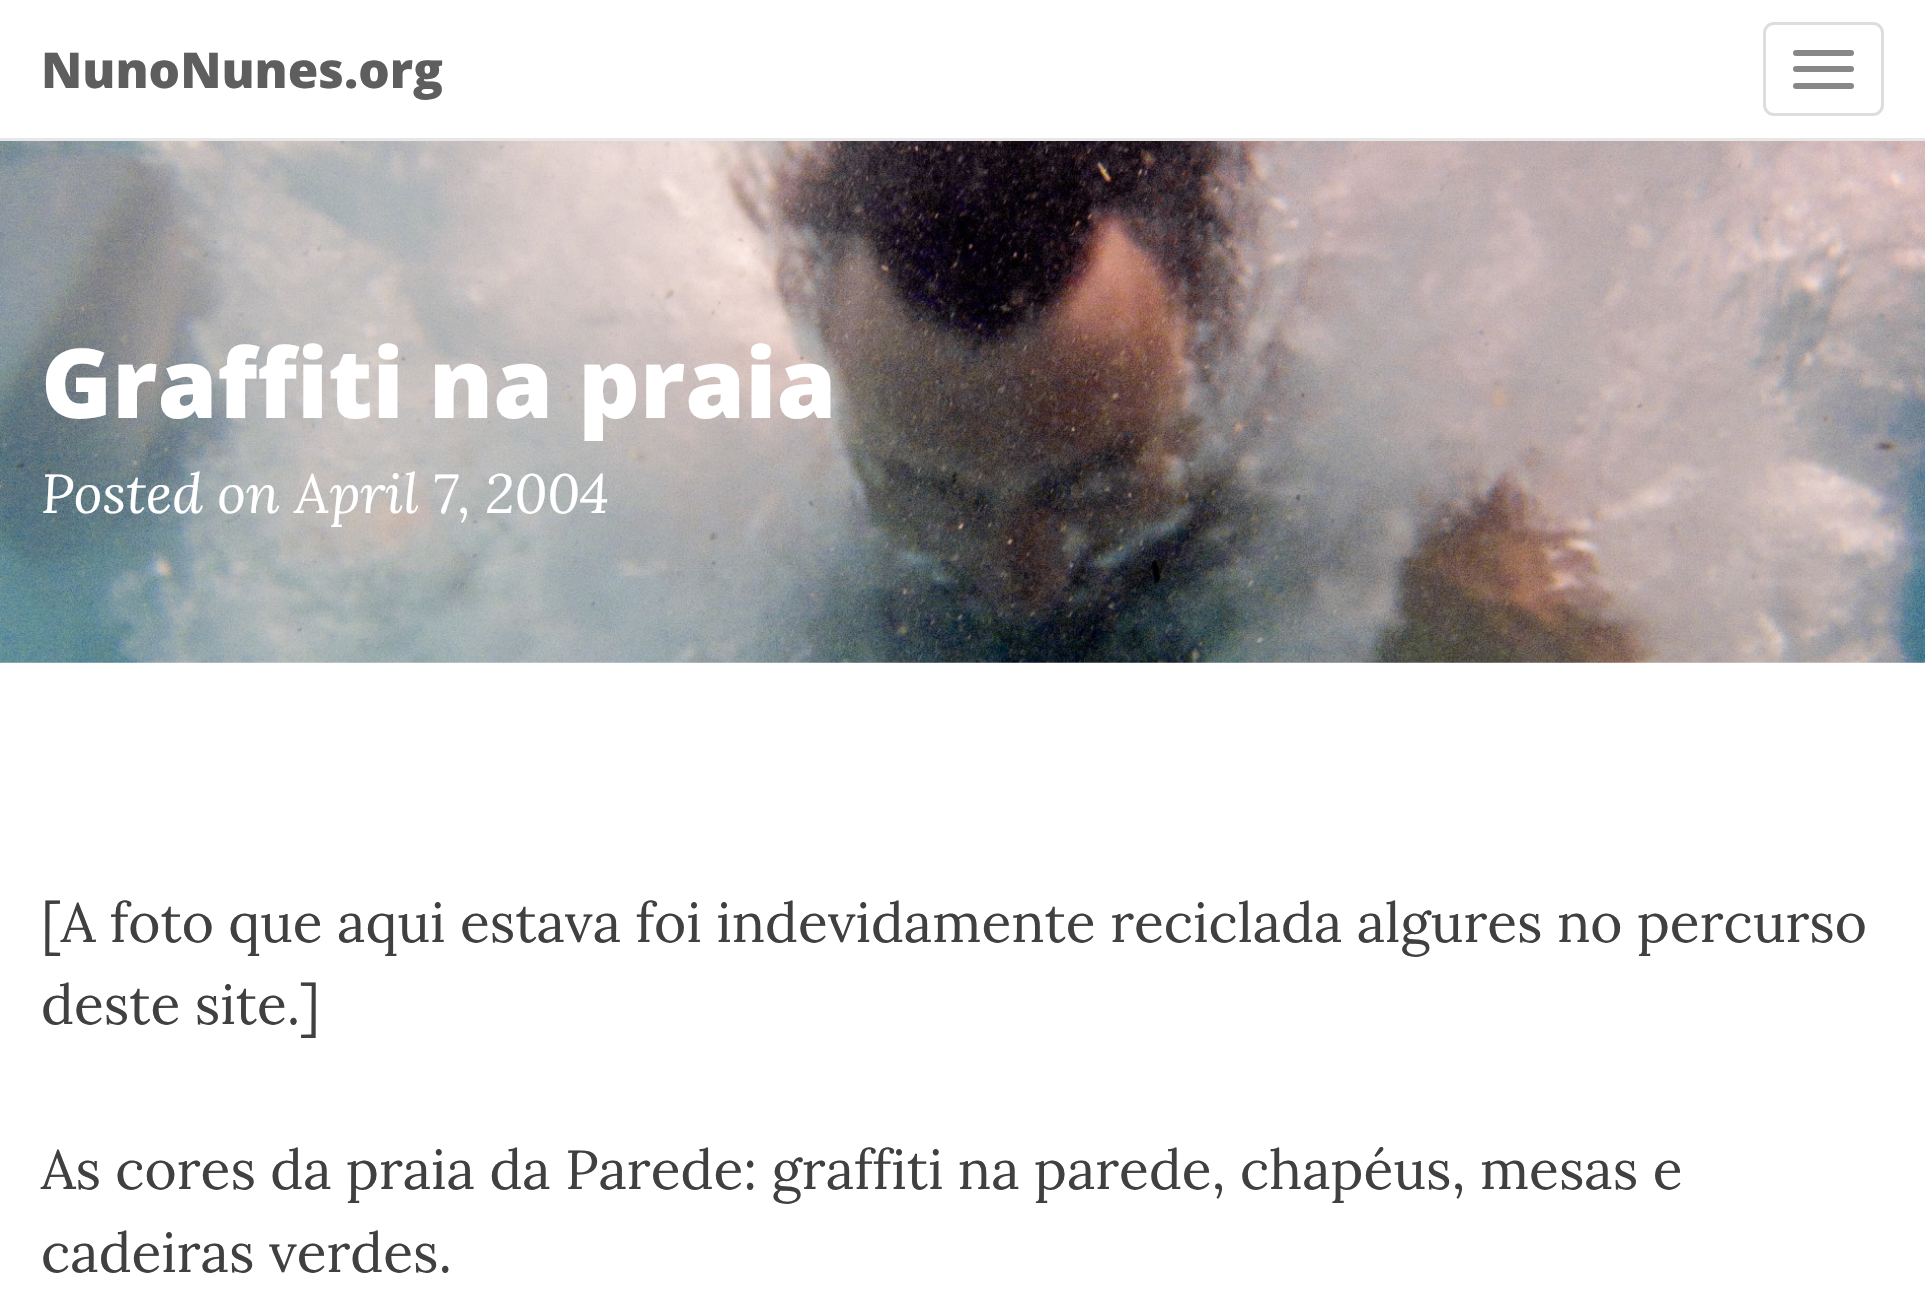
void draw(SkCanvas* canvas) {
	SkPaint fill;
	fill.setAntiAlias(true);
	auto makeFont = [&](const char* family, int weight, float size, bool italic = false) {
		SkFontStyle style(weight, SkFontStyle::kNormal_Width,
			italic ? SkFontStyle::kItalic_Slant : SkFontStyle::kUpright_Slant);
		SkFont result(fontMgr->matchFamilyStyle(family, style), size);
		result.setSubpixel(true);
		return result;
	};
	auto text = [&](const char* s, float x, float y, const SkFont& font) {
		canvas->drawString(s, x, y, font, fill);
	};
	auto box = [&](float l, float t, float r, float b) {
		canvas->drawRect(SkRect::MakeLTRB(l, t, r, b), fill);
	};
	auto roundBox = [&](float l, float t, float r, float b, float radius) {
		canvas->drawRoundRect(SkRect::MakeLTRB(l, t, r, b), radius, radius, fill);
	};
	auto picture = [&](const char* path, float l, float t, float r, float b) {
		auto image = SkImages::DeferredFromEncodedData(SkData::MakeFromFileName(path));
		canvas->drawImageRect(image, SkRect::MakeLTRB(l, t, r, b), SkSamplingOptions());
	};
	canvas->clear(0xFFFFFFFF);
	fill.setColor(0xFFE7E7E7);
	box(0, 138, 1925, 141);
	fill.setStyle(SkPaint::kStroke_Style);
	fill.setStrokeWidth(3);
	fill.setColor(0xFFDDDDDD);
	canvas->drawRoundRect(SkRect::MakeLTRB(1764.5f, 23.5f, 1882.5f, 114.5f), 9.5f, 9.5f, fill);
	fill.setStyle(SkPaint::kFill_Style);
	fill.setColor(0xFF888888);
	roundBox(1793, 50, 1854, 56, 3);
	roundBox(1793, 66, 1854, 72, 3);
	roundBox(1793, 83, 1854, 89, 3);
	picture("image0.png", 0, 141, 1925, 663);
	auto font1 = makeFont("Open Sans", 800, 49.5f);
	fill.setColor(0xFF5E5E5E);
	text("NunoNunes.org", 41, 88, font1);
	auto font2 = makeFont("Open Sans", 800, 96.25f);
	fill.setColor(0xFFFFFFFF);
	text("Graffiti na praia", 41, 418, font2);
	auto font3 = makeFont("Lora", 400, 55, true);
	text("Posted on April 7, 2004", 41, 513, font3);
	auto font4 = makeFont("Lora", 400, 55);
	fill.setColor(0xFF404040);
	text("[A foto que aqui estava foi indevidamente reciclada algures no percurso", 41, 942, font4);
	text("deste site.]", 41, 1024, font4);
	text("As cores da praia da Parede: graffiti na parede, chapéus, mesas e", 41, 1189, font4);
	text("cadeiras verdes.", 41, 1272, font4);
}
